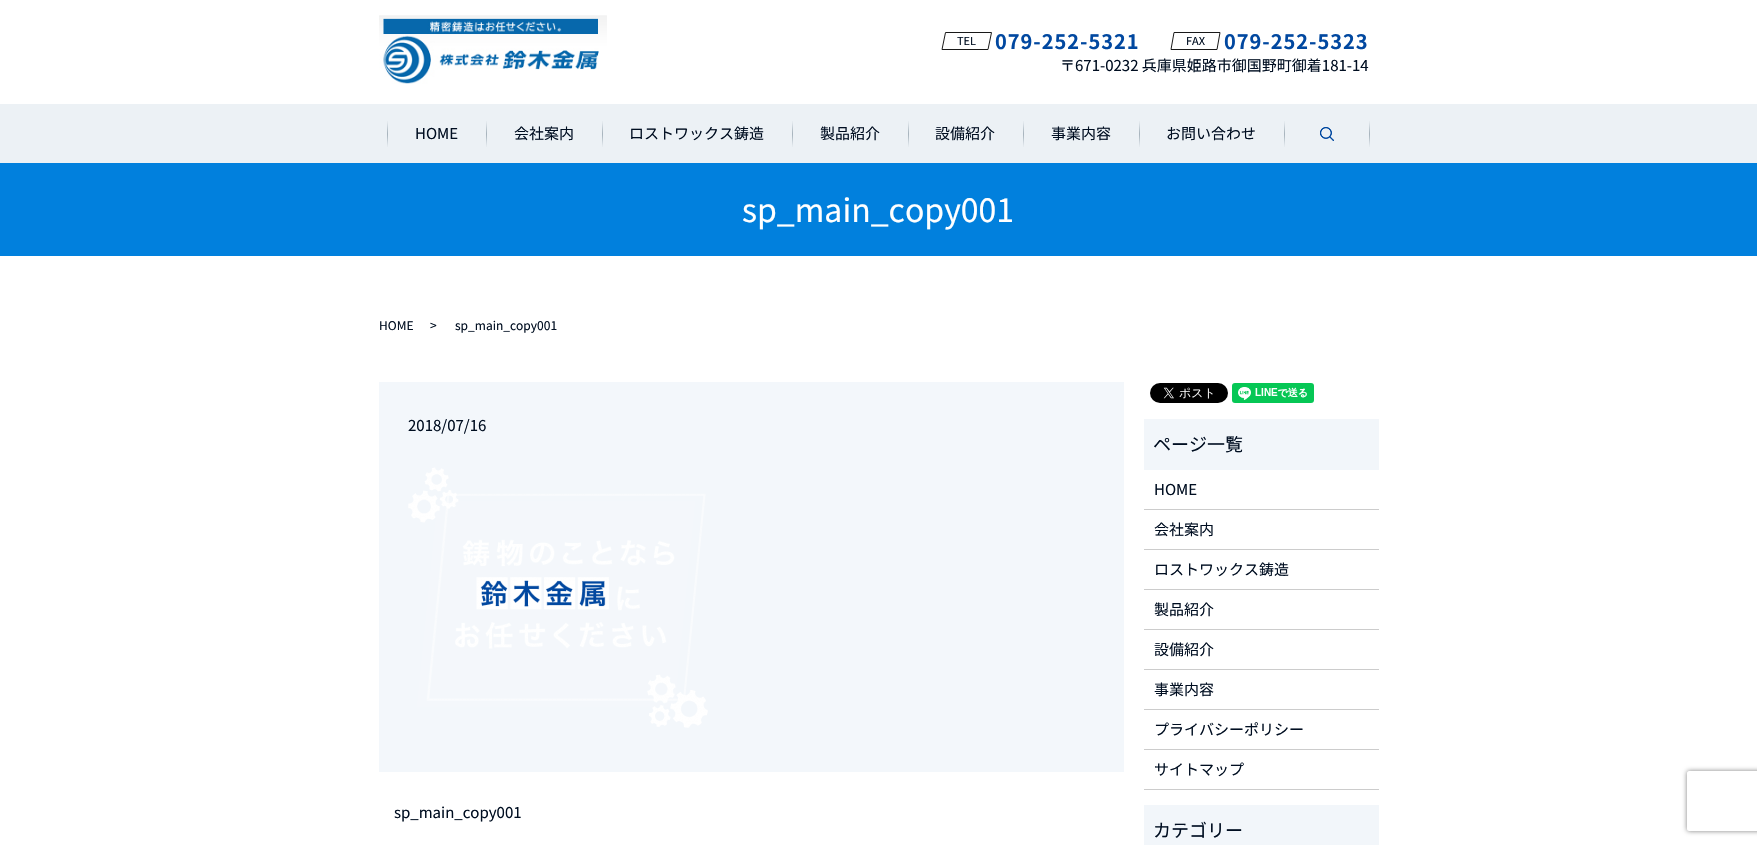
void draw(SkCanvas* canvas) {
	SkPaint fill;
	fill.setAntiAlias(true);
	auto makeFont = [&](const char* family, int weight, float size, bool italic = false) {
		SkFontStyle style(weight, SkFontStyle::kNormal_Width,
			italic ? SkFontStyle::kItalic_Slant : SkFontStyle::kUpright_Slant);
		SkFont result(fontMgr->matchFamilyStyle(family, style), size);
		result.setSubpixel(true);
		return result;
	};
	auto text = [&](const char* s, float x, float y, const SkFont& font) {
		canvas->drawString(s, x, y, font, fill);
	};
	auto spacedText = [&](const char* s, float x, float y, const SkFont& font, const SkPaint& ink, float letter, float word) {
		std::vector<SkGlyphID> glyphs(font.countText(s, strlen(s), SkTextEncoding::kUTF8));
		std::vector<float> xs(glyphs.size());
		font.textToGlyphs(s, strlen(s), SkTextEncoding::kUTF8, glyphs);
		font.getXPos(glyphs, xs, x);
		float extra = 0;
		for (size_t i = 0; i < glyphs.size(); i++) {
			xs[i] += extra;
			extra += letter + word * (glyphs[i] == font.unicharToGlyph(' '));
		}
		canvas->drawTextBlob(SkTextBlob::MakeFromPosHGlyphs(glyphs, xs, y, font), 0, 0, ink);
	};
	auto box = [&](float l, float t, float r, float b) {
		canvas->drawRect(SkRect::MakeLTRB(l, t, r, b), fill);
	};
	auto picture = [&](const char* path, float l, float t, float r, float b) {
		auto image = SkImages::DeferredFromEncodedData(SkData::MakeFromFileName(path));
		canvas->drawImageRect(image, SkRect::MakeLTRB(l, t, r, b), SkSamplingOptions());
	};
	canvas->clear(0xFFFFFFFF);
	picture("image0.png", 379, 15, 607, 84);
	fill.setStyle(SkPaint::kStroke_Style);
	fill.setStrokeWidth(1);
	fill.setColor(0xFF191919);
	canvas->drawPath(SkPathBuilder().moveTo(945.5f, 32.5f).lineTo(991.5f, 32.5f).lineTo(988, 49.5f).lineTo(942, 49.5f).close().detach(), fill);
	canvas->drawPath(SkPathBuilder().moveTo(1174, 32.5f).lineTo(1220, 32.5f).lineTo(1217, 49.5f).lineTo(1171, 49.5f).close().detach(), fill);
	fill.setStyle(SkPaint::kFill_Style);
	fill.setColor(0xFFECF1F5);
	box(0, 104, 1757, 163);
	picture("image1.png", 387, 121, 388, 147);
	picture("image1.png", 486, 121, 487, 147);
	picture("image1.png", 602, 121, 603, 147);
	picture("image1.png", 792, 121, 793, 147);
	picture("image1.png", 908, 121, 909, 147);
	picture("image1.png", 1023, 121, 1024, 147);
	picture("image1.png", 1139, 121, 1140, 147);
	picture("image1.png", 1284, 121, 1285, 147);
	picture("image2.png", 1320, 127, 1334, 141);
	picture("image1.png", 1369, 121, 1370, 147);
	fill.setColor(0xFF0180DD);
	box(0, 163, 1757, 256);
	fill.setColor(0xFFF3F7FB);
	box(379, 382, 1124, 772);
	picture("image3.png", 408, 467, 708, 728);
	picture("image4.png", 1150, 383, 1228, 403);
	picture("image5.png", 1232, 383, 1314, 403);
	fill.setColor(0xFFF2F6FA);
	box(1144, 419, 1379, 470);
	fill.setColor(0xFFCCCCCC);
	box(1144, 509, 1379, 510);
	box(1144, 549, 1379, 550);
	box(1144, 589, 1379, 590);
	box(1144, 629, 1379, 630);
	box(1144, 669, 1379, 670);
	box(1144, 709, 1379, 710);
	box(1144, 749, 1379, 750);
	box(1144, 789, 1379, 790);
	fill.setColor(0xFFF2F6FA);
	box(1144, 805, 1379, 845);
	canvas->save();
	canvas->clipPath(SkPathBuilder(SkPathFillType::kEvenOdd).moveTo(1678, 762).lineTo(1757, 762).lineTo(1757, 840).lineTo(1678, 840).close().moveTo(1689, 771).lineTo(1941, 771).cubicTo(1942, 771, 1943, 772, 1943, 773).lineTo(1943, 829).cubicTo(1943, 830, 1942, 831, 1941, 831).lineTo(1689, 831).cubicTo(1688, 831, 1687, 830, 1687, 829).lineTo(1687, 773).cubicTo(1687, 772, 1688, 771, 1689, 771).close().detach(), true);
	fill.setColor(0xFF808080);
	fill.setMaskFilter(SkMaskFilter::MakeBlur(kNormal_SkBlurStyle, 2.5f));
	canvas->drawRoundRect(SkRect::MakeLTRB(1687, 771, 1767, 831), 2, 2, fill);
	fill.setMaskFilter(nullptr);
	canvas->restore();
	auto font1 = makeFont("Noto Sans JP", 400, 11);
	fill.setColor(0xFF000E21);
	text("TEL", 957, 45, font1);
	auto font2 = makeFont("Noto Sans JP", 700, 20);
	fill.setColor(0xFF0148A0);
	spacedText("079-252-5321", 995, 49, font2, fill, 1, 0);
	fill.setColor(0xFF000E21);
	text("FAX", 1186, 45, font1);
	fill.setColor(0xFF0148A0);
	spacedText("079-252-5323", 1224, 49, font2, fill, 1, 0);
	auto font3 = makeFont("Noto Sans JP", 400, 15);
	fill.setColor(0xFF000E21);
	text("〒671-0232 兵庫県姫路市御国野町御着181-14", 1060, 71, font3);
	text("HOME", 415, 139, font3);
	text("会社案内", 514, 139, font3);
	text("ロストワックス鋳造", 629, 139, font3);
	text("製品紹介", 820, 139, font3);
	text("設備紹介", 935, 139, font3);
	text("事業内容", 1051, 139, font3);
	text("お問い合わせ", 1166, 139, font3);
	auto font4 = makeFont("Noto Sans JP", 400, 32);
	fill.setColor(0xFFFFFFFF);
	text("sp_main_copy001", 742, 222, font4);
	auto font5 = makeFont("Noto Sans JP", 400, 12);
	fill.setColor(0xFF000E21);
	text("HOME", 379, 330, font5);
	text(">", 430, 330, font5);
	text("sp_main_copy001", 455, 330, font5);
	text("2018/07/16", 408, 431, font3);
	text("sp_main_copy001", 394, 818, font3);
	auto font6 = makeFont("Noto Sans JP", 400, 18);
	text("ページ一覧", 1153, 451, font6);
	text("HOME", 1154, 495, font3);
	text("会社案内", 1154, 535, font3);
	text("ロストワックス鋳造", 1154, 575, font3);
	text("製品紹介", 1154, 615, font3);
	text("設備紹介", 1154, 655, font3);
	text("事業内容", 1154, 695, font3);
	text("プライバシーポリシー", 1154, 735, font3);
	text("サイトマップ", 1154, 775, font3);
	text("カテゴリー", 1153, 837, font6);
}
